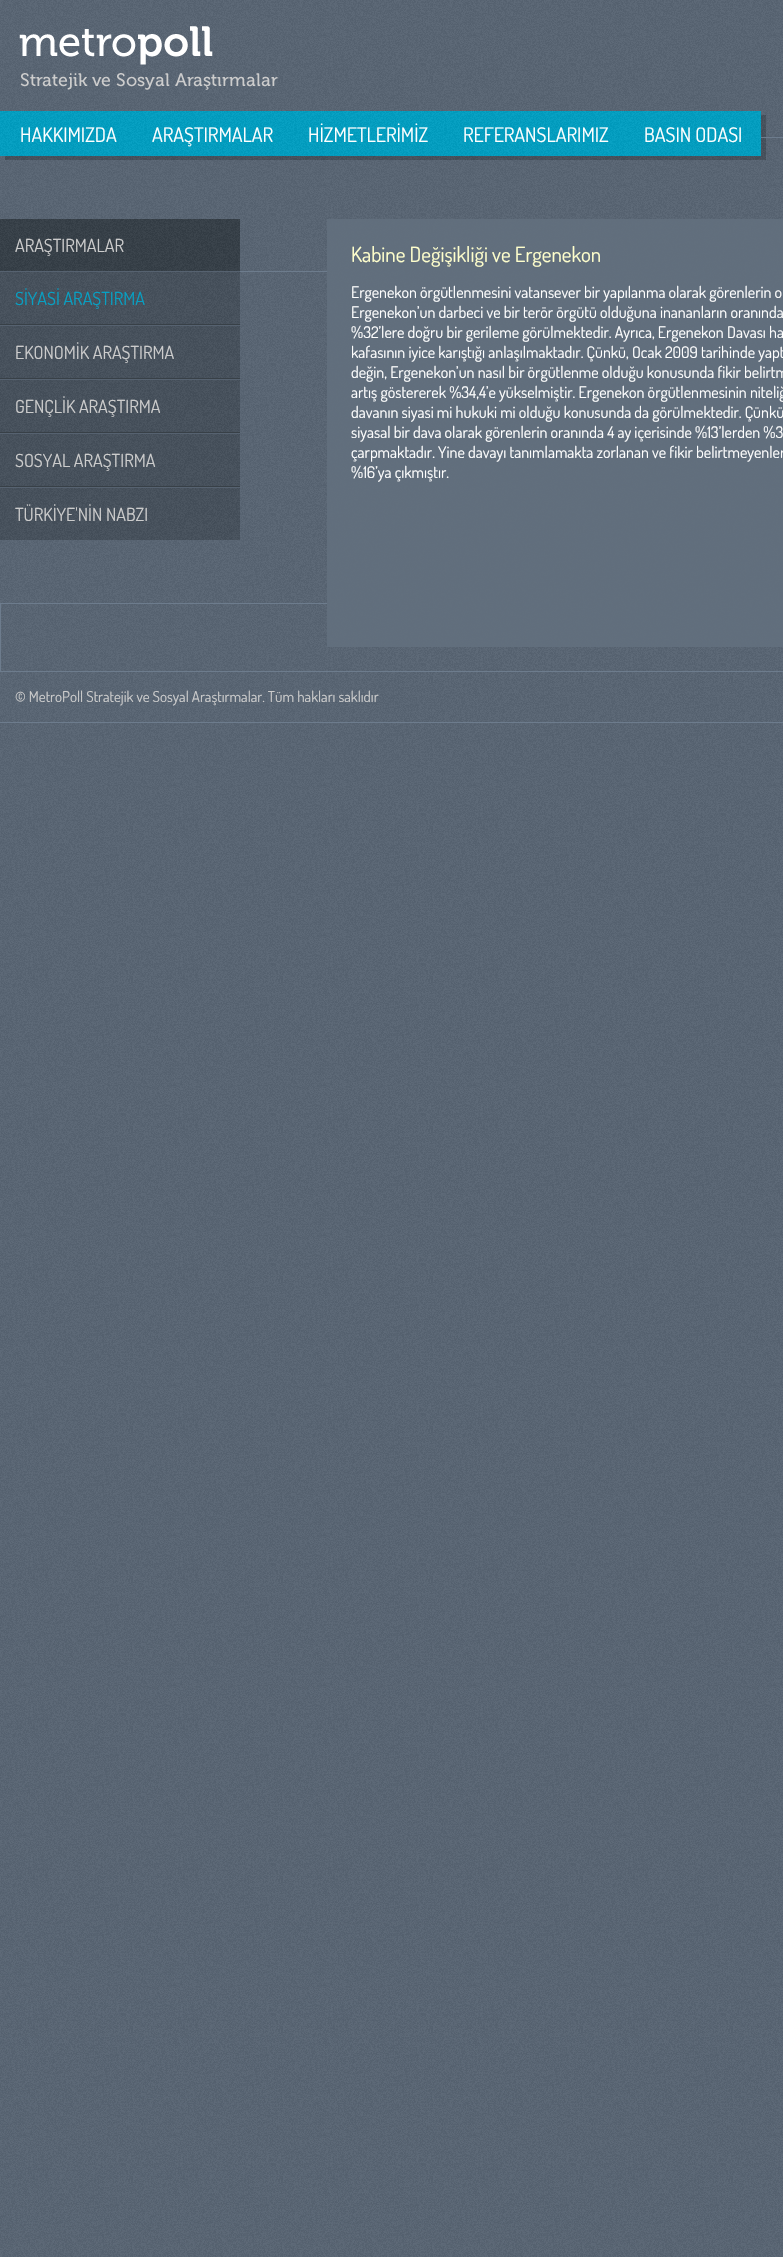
void draw(SkCanvas* canvas) {
	SkPaint fill;
	fill.setAntiAlias(true);
	auto makeFont = [&](const char* family, int weight, float size, bool italic = false) {
		SkFontStyle style(weight, SkFontStyle::kNormal_Width,
			italic ? SkFontStyle::kItalic_Slant : SkFontStyle::kUpright_Slant);
		SkFont result(fontMgr->matchFamilyStyle(family, style), size);
		result.setSubpixel(true);
		return result;
	};
	auto text = [&](const char* s, float x, float y, const SkFont& font) {
		canvas->drawString(s, x, y, font, fill);
	};
	auto box = [&](float l, float t, float r, float b) {
		canvas->drawRect(SkRect::MakeLTRB(l, t, r, b), fill);
	};
	auto picture = [&](const char* path, float l, float t, float r, float b) {
		auto image = SkImages::DeferredFromEncodedData(SkData::MakeFromFileName(path));
		canvas->drawImageRect(image, SkRect::MakeLTRB(l, t, r, b), SkSamplingOptions());
	};
	canvas->clear(0xFFFFFFFF);
	picture("image0.png", 0, 0, 783, 2257);
	picture("image1.png", 19, 26, 278, 90);
	picture("image2.png", 5, 115, 766, 160);
	picture("image3.png", 0, 111, 761, 156);
	fill.setColor(0xFF6D7C8D);
	box(761, 137, 783, 138);
	box(240, 271, 328, 272);
	picture("image4.png", 0, 219, 240, 271);
	picture("image5.png", 0, 272, 240, 324);
	fill.setColor(0xFF566270);
	box(0, 271, 240, 272);
	fill.setColor(0xFF384047);
	box(0, 324, 240, 325);
	picture("image5.png", 0, 326, 240, 378);
	fill.setColor(0xFF566270);
	box(0, 325, 240, 326);
	fill.setColor(0xFF384047);
	box(0, 378, 240, 379);
	picture("image5.png", 0, 380, 240, 432);
	fill.setColor(0xFF566270);
	box(0, 379, 240, 380);
	fill.setColor(0xFF384047);
	box(0, 432, 240, 433);
	picture("image5.png", 0, 434, 240, 486);
	fill.setColor(0xFF566270);
	box(0, 433, 240, 434);
	fill.setColor(0xFF384047);
	box(0, 486, 240, 487);
	picture("image5.png", 0, 488, 240, 540);
	fill.setColor(0xFF566270);
	box(0, 487, 240, 488);
	fill.setColor(0xE6626F7D);
	box(327, 219, 783, 647);
	fill.setColor(0xFF6D7C8D);
	box(0, 603, 327, 604);
	box(0, 603, 1, 672);
	box(0, 671, 783, 672);
	box(0, 722, 783, 723);
	auto font1 = makeFont("Dosis", 400, 20);
	fill.setColor(0xFFFFFFFF);
	text("HAKKIMIZDA", 20, 142, font1);
	text("ARAŞTIRMALAR", 152, 142, font1);
	text("HİZMETLERİMİZ", 308, 142, font1);
	text("REFERANSLARIMIZ", 463, 142, font1);
	text("BASIN ODASI", 644, 142, font1);
	auto font2 = makeFont("Dosis", 400, 18);
	fill.setColor(0xFFCCCCCC);
	text("ARAŞTIRMALAR", 15, 252, font2);
	fill.setColor(0xFF07A0C3);
	text("SİYASİ ARAŞTIRMA", 15, 305, font2);
	fill.setColor(0xFFCCCCCC);
	text("EKONOMİK ARAŞTIRMA", 15, 359, font2);
	text("GENÇLİK ARAŞTIRMA", 15, 413, font2);
	text("SOSYAL ARAŞTIRMA", 15, 467, font2);
	text("TÜRKİYE'NİN NABZI", 15, 521, font2);
	auto font3 = makeFont("Dosis", 400, 21);
	fill.setColor(0xFFFFFFCC);
	text("Kabine Değişikliği ve Ergenekon", 351, 262, font3);
	auto font4 = makeFont("Dosis", 400, 16);
	fill.setColor(0xFFFFFFFF);
	text("Ergenekon örgütlenmesini vatansever bir yapılanma olarak görenlerin o", 351, 298, font4);
	text("Ergenekon’un darbeci ve bir terör örgütü olduğuna inananların oranında", 351, 318, font4);
	text("%32’lere doğru bir gerileme görülmektedir. Ayrıca, Ergenekon Davası ha", 351, 338, font4);
	text("kafasının iyice karıştığı anlaşılmaktadır. Çünkü, Ocak 2009 tarihinde yapt", 351, 358, font4);
	text("değin, Ergenekon’un nasıl bir örgütlenme olduğu konusunda fikir belirtm", 351, 378, font4);
	text("artış göstererek %34,4’e yükselmiştir. Ergenekon örgütlenmesinin niteliğ", 351, 398, font4);
	text("davanın siyasi mi hukuki mi olduğu konusunda da görülmektedir. Çünkü", 351, 418, font4);
	text("siyasal bir dava olarak görenlerin oranında 4 ay içerisinde %13’lerden %3", 351, 438, font4);
	text("çarpmaktadır. Yine davayı tanımlamakta zorlanan ve fikir belirtmeyenler", 351, 458, font4);
	text("%16’ya çıkmıştır.", 351, 478, font4);
	auto font5 = makeFont("Dosis", 400, 15);
	fill.setColor(0xFFCCCCCC);
	text("© MetroPoll Stratejik ve Sosyal Araştırmalar. Tüm hakları saklıdır", 15, 702, font5);
}
